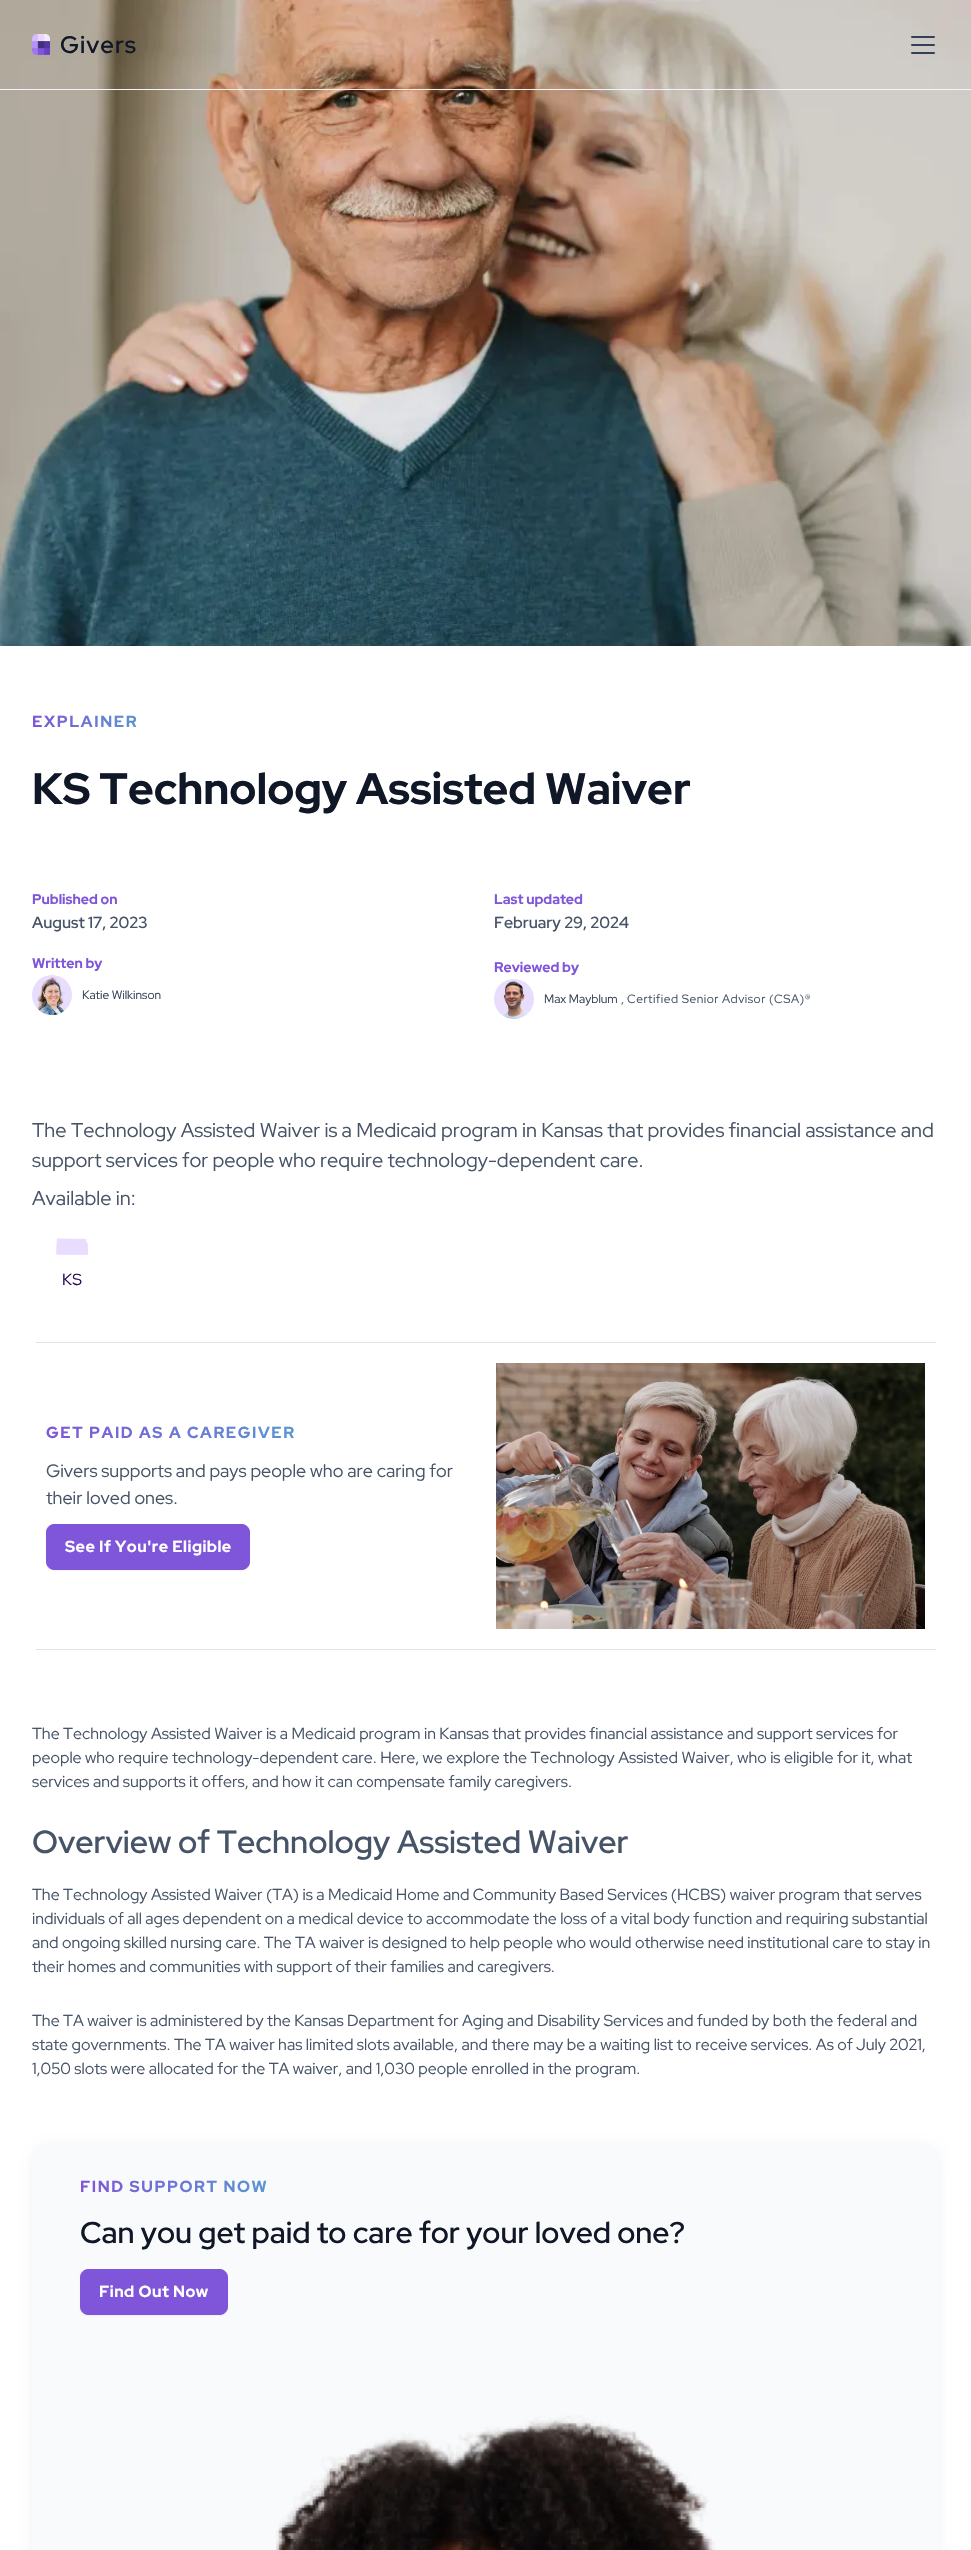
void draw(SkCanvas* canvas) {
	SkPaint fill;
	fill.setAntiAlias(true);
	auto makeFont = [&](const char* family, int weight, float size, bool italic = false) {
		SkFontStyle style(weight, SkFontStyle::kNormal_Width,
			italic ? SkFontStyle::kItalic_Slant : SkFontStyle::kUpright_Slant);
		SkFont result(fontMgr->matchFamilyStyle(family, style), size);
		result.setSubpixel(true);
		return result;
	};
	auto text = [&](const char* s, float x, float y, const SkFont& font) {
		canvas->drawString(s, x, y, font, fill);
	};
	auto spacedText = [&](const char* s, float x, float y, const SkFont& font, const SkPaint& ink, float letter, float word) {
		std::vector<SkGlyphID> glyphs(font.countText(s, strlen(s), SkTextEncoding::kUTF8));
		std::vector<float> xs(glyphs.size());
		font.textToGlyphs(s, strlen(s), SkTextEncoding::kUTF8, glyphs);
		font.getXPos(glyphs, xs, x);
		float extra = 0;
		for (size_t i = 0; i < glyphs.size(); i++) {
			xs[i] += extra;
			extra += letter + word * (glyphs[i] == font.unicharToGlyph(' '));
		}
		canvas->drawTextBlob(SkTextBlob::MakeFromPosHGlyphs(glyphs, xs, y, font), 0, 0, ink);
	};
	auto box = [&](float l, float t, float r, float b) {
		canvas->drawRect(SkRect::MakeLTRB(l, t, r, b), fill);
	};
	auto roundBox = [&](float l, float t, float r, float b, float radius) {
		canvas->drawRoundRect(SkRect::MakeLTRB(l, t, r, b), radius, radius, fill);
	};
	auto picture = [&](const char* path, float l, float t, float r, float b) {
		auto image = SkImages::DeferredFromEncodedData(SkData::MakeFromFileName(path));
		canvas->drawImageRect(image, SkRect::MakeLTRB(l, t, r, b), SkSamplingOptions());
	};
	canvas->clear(0xFFFFFFFF);
	picture("image1.png", 0, 0, 971, 646);
	fill.setColor(0xFFF2F4F7);
	box(0, 89, 971, 90);
	picture("image0.png", 32, 34, 50, 55);
	fill.setColor(0xFF344054);
	roundBox(911, 36, 935, 38, 1);
	roundBox(911, 44, 935, 46, 1);
	roundBox(911, 52, 935, 54, 1);
	picture("image2.png", 32, 975, 72, 1015);
	picture("image3.png", 494, 979, 534, 1019);
	picture("image4.png", 56, 1238, 88, 1255);
	fill.setColor(0xFFDFE3EB);
	box(36, 1342, 936, 1343);
	box(36, 1649, 936, 1650);
	fill.setColor(0x0D101828);
	fill.setMaskFilter(SkMaskFilter::MakeBlur(kNormal_SkBlurStyle, 1));
	canvas->drawRoundRect(SkRect::MakeLTRB(46, 1525, 250, 1571), 8, 8, fill);
	fill.setMaskFilter(nullptr);
	fill.setColor(0xFF7F56D9);
	canvas->drawRoundRect(SkRect::MakeLTRB(46.5f, 1524.5f, 249.5f, 1569.5f), 7.5f, 7.5f, fill);
	fill.setStyle(SkPaint::kStroke_Style);
	fill.setStrokeWidth(1);
	canvas->drawRoundRect(SkRect::MakeLTRB(46.5f, 1524.5f, 249.5f, 1569.5f), 7.5f, 7.5f, fill);
	picture("image5.png", 496, 1363, 925, 1629);
	fill.setStyle(SkPaint::kFill_Style);
	fill.setColor(0x33000000);
	fill.setMaskFilter(SkMaskFilter::MakeBlur(kNormal_SkBlurStyle, 9));
	canvas->drawRoundRect(SkRect::MakeLTRB(41, 2154, 930, 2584), 7, 7, fill);
	fill.setMaskFilter(nullptr);
	fill.setColor(0xFFF9FAFB);
	roundBox(32, 2143, 939, 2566, 16);
	fill.setColor(0x0D101828);
	fill.setMaskFilter(SkMaskFilter::MakeBlur(kNormal_SkBlurStyle, 1));
	canvas->drawRoundRect(SkRect::MakeLTRB(80, 2270, 228, 2316), 8, 8, fill);
	fill.setMaskFilter(nullptr);
	fill.setColor(0xFF7F56D9);
	canvas->drawRoundRect(SkRect::MakeLTRB(80.5f, 2269.5f, 227.5f, 2314.5f), 7.5f, 7.5f, fill);
	fill.setStyle(SkPaint::kStroke_Style);
	canvas->drawRoundRect(SkRect::MakeLTRB(80.5f, 2269.5f, 227.5f, 2314.5f), 7.5f, 7.5f, fill);
	picture("image6.png", 276, 2415, 716, 2550);
	auto font1 = makeFont("Red Hat Display", 500, 24);
	fill.setStyle(SkPaint::kFill_Style);
	fill.setColor(0xFF101828);
	spacedText("Givers", 60, 53, font1, fill, 1, 0);
	auto font2 = makeFont("Red Hat Display", 700, 16);
	{
		const SkColor colors[] = {0xFF7F56D9, 0xFF5B95D2};
		const float stops[] = {0, 1};
		const SkPoint ends[] = {{32, 722}, {138, 722}};
		fill.setShader(SkGradientShader::MakeLinear(ends, colors, stops, 2, SkTileMode::kClamp));
		fill.setAlpha(255);
	}
	spacedText("EXPLAINER", 32, 727, font2, fill, 1.6f, 0);
	auto font3 = makeFont("Red Hat Display", 700, 44);
	fill.setShader(nullptr);
	fill.setColor(0xFF101828);
	text("KS Technology Assisted Waiver", 32, 804, font3);
	auto font4 = makeFont("Red Hat Display", 700, 14);
	fill.setColor(0xFF7F56D9);
	text("Published on", 32, 904, font4);
	auto font5 = makeFont("Red Hat Display", 500, 16);
	fill.setColor(0xFF475467);
	text("August 17, 2023", 32, 928, font5);
	fill.setColor(0xFF7F56D9);
	text("Last updated", 494, 904, font4);
	fill.setColor(0xFF475467);
	text("February 29, 2024", 494, 928, font5);
	fill.setColor(0xFF7F56D9);
	text("Written by", 32, 968, font4);
	auto font6 = makeFont("Red Hat Display", 400, 12);
	fill.setColor(0xFF344054);
	text("Katie Wilkinson", 82, 999, font6);
	fill.setColor(0xFF7F56D9);
	text("Reviewed by", 494, 972, font4);
	fill.setColor(0xFF344054);
	text("Max Mayblum", 544, 1003, font6);
	fill.setColor(0xFF475467);
	text(",", 621, 1003, font6);
	spacedText("Certified Senior Advisor (CSA)®", 627, 1003, font6, fill, 0.5f, 0);
	auto font7 = makeFont("Red Hat Display", 400, 20);
	text("The Technology Assisted Waiver is a Medicaid program in Kansas that provides financial assistance and", 32, 1137, font7);
	text("support services for people who require technology-dependent care.", 32, 1167, font7);
	text("Available in:", 32, 1205, font7);
	auto font8 = makeFont("Red Hat Display", 400, 16);
	fill.setColor(0xFF240858);
	spacedText("KS", 62, 1285, font8, fill, 0.5f, 0);
	{
		const SkColor colors[] = {0xFF7F56D9, 0xFF5B95D2};
		const float stops[] = {0, 1};
		const SkPoint ends[] = {{46, 1433}, {295, 1433}};
		fill.setShader(SkGradientShader::MakeLinear(ends, colors, stops, 2, SkTileMode::kClamp));
		fill.setAlpha(255);
	}
	spacedText("GET PAID AS A CAREGIVER", 46, 1438, font2, fill, 1.6f, 0);
	auto font9 = makeFont("Red Hat Display", 400, 18);
	fill.setShader(nullptr);
	fill.setColor(0xFF475467);
	text("Givers supports and pays people who are caring for", 46, 1477, font9);
	text("their loved ones.", 46, 1504, font9);
	fill.setColor(0xFFFFFFFF);
	spacedText("See If You're Eligible", 65, 1552, font2, fill, 0.5f, 0);
	fill.setColor(0xFF475467);
	text("The Technology Assisted Waiver is a Medicaid program in Kansas that provides financial assistance and support services for", 32, 1739, font8);
	text("people who require technology-dependent care. Here, we explore the Technology Assisted Waiver, who is eligible for it, what", 32, 1763, font8);
	text("services and supports it offers, and how it can compensate family caregivers.", 32, 1787, font8);
	auto font10 = makeFont("Red Hat Display", 500, 32);
	text("Overview of Technology Assisted Waiver", 32, 1853, font10);
	text("The Technology Assisted Waiver (TA) is a Medicaid Home and Community Based Services (HCBS) waiver program that serves", 32, 1900, font8);
	text("individuals of all ages dependent on a medical device to accommodate the loss of a vital body function and requiring substantial", 32, 1924, font8);
	text("and ongoing skilled nursing care. The TA waiver is designed to help people who would otherwise need institutional care to stay in", 32, 1948, font8);
	text("their homes and communities with support of their families and caregivers.", 32, 1972, font8);
	text("The TA waiver is administered by the Kansas Department for Aging and Disability Services and funded by both the federal and", 32, 2026, font8);
	text("state governments. The TA waiver has limited slots available, and there may be a waiting list to receive services. As of July 2021,", 32, 2050, font8);
	text("1,050 slots were allocated for the TA waiver, and 1,030 people enrolled in the program.", 32, 2074, font8);
	{
		const SkColor colors[] = {0xFF7F56D9, 0xFF5B95D2};
		const float stops[] = {0, 1};
		const SkPoint ends[] = {{80, 2187}, {268, 2187}};
		fill.setShader(SkGradientShader::MakeLinear(ends, colors, stops, 2, SkTileMode::kClamp));
		fill.setAlpha(255);
	}
	spacedText("FIND SUPPORT NOW", 80, 2192, font2, fill, 1.6f, 0);
	auto font11 = makeFont("Red Hat Display", 500, 30);
	fill.setShader(nullptr);
	fill.setColor(0xFF101828);
	text("Can you get paid to care for your loved one?", 80, 2243, font11);
	fill.setColor(0xFFFFFFFF);
	spacedText("Find Out Now", 99, 2297, font2, fill, 0.5f, 0);
}
